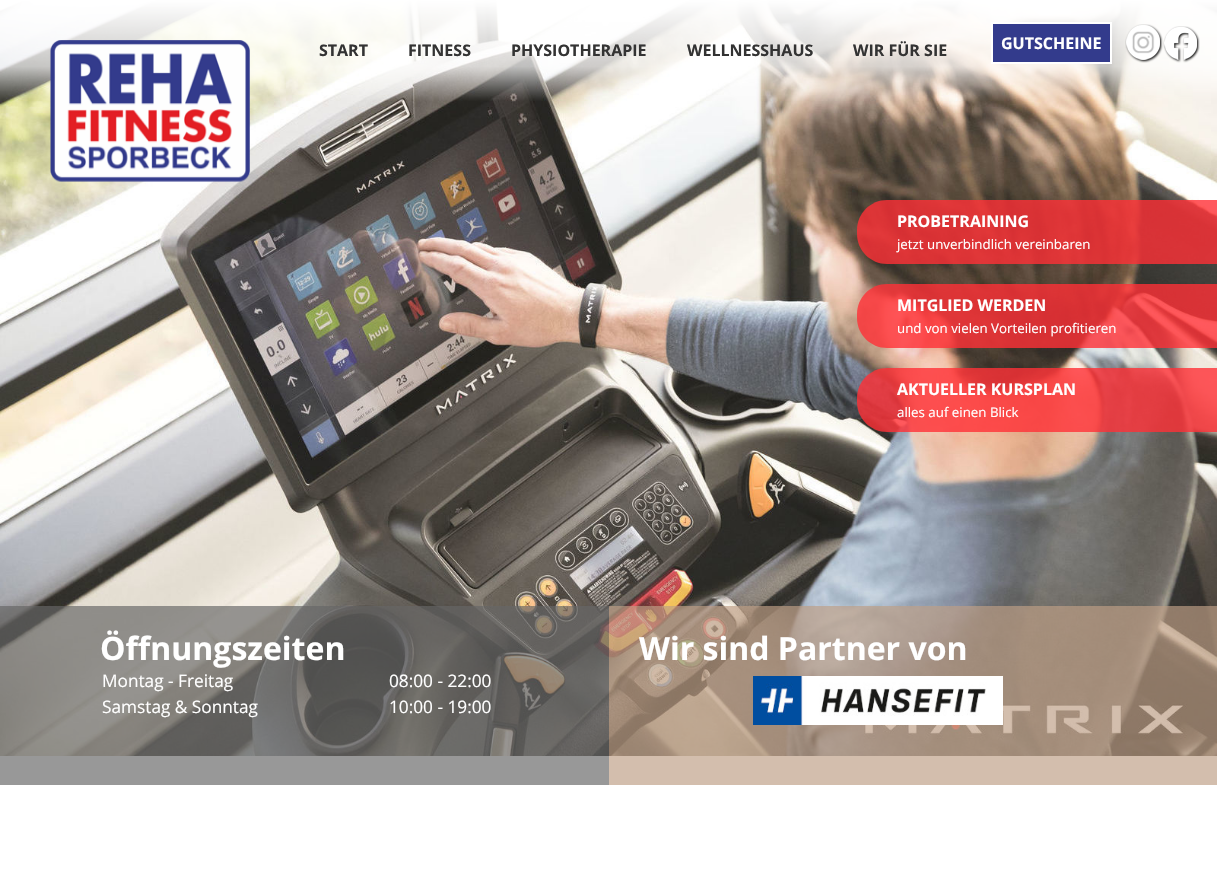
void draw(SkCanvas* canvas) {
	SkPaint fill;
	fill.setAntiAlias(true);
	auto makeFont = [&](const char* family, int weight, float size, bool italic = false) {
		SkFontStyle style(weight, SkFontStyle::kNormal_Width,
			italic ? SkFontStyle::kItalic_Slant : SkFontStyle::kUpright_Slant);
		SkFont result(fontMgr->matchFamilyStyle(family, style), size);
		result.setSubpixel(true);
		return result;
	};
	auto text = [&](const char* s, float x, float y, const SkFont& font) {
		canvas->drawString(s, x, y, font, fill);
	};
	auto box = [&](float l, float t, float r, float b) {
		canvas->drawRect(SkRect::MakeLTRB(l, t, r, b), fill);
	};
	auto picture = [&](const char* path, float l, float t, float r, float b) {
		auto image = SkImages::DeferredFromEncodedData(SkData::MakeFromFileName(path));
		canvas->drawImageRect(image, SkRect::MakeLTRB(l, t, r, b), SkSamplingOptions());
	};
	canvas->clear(0xFFFFFFFF);
	picture("image3.png", 0, 0, 1217, 756);
	picture("image0.png", 50, 40, 250, 182);
	fill.setColor(0xFF333B8C);
	canvas->drawRect(SkRect::MakeLTRB(992, 23, 1111, 63), fill);
	fill.setStyle(SkPaint::kStroke_Style);
	fill.setStrokeWidth(2);
	fill.setColor(0xFFFFFFFF);
	canvas->drawRect(SkRect::MakeLTRB(992, 23, 1111, 63), fill);
	picture("image1.png", 1125, 24, 1163, 63);
	picture("image2.png", 1163, 26, 1200, 63);
	fill.setStyle(SkPaint::kFill_Style);
	fill.setColor(0xCCFF3036);
	canvas->drawPath(SkPathBuilder().moveTo(887, 200).lineTo(1217, 200).lineTo(1217, 264).lineTo(887, 264).cubicTo(870.5f, 264, 857, 250.5f, 857, 234).lineTo(857, 230).cubicTo(857, 213.5f, 870.5f, 200, 887, 200).close().detach(), fill);
	canvas->drawPath(SkPathBuilder().moveTo(887, 284).lineTo(1217, 284).lineTo(1217, 348).lineTo(887, 348).cubicTo(870.5f, 348, 857, 334.5f, 857, 318).lineTo(857, 314).cubicTo(857, 297.5f, 870.5f, 284, 887, 284).close().detach(), fill);
	canvas->drawPath(SkPathBuilder().moveTo(887, 368).lineTo(1217, 368).lineTo(1217, 432).lineTo(887, 432).cubicTo(870.5f, 432, 857, 418.5f, 857, 402).lineTo(857, 398).cubicTo(857, 381.5f, 870.5f, 368, 887, 368).close().detach(), fill);
	fill.setColor(0xAB666666);
	box(0, 606, 609, 785);
	fill.setColor(0xABBE9E84);
	box(609, 606, 1217, 785);
	picture("image4.png", 753, 676, 1003, 725);
	auto font1 = makeFont("Open Sans", 700, 16);
	fill.setColor(0xFF333333);
	text("START", 319, 56, font1);
	text("FITNESS", 408, 56, font1);
	text("PHYSIOTHERAPIE", 511, 56, font1);
	text("WELLNESSHAUS", 687, 56, font1);
	text("WIR FÜR SIE", 853, 56, font1);
	fill.setColor(0xFFFFFFFF);
	text("GUTSCHEINE", 1001, 49, font1);
	text("PROBETRAINING", 897, 227, font1);
	auto font2 = makeFont("Open Sans", 400, 13.3f);
	text("jetzt unverbindlich vereinbaren", 897, 249, font2);
	text("MITGLIED WERDEN", 897, 311, font1);
	text("und von vielen Vorteilen profitieren", 897, 333, font2);
	text("AKTUELLER KURSPLAN", 897, 395, font1);
	text("alles auf einen Blick", 897, 417, font2);
	auto font3 = makeFont("Open Sans", 700, 32);
	text("Öffnungszeiten", 100, 660, font3);
	auto font4 = makeFont("Open Sans", 400, 17.25f);
	text("Montag - Freitag", 102, 687, font4);
	text("08:00 - 22:00", 389, 687, font4);
	text("Samstag & Sonntag", 102, 713, font4);
	text("10:00 - 19:00", 389, 713, font4);
	text("Wir sind Partner von", 639, 660, font3);
}
